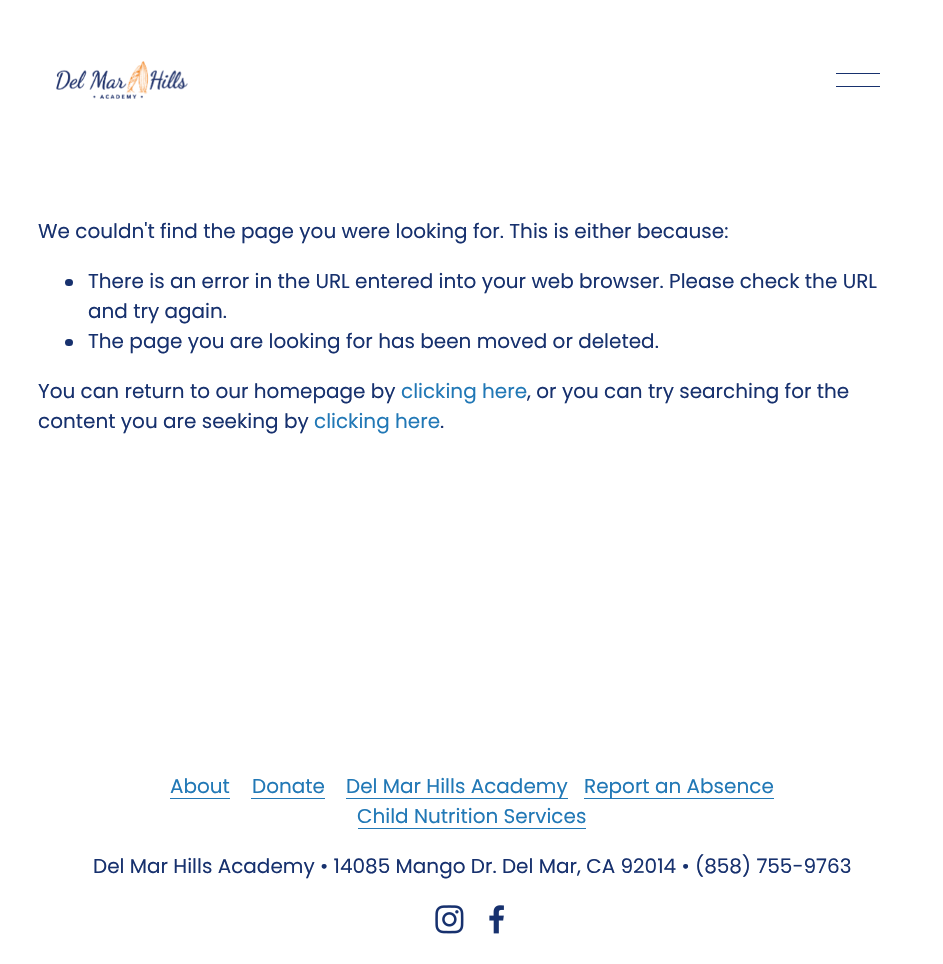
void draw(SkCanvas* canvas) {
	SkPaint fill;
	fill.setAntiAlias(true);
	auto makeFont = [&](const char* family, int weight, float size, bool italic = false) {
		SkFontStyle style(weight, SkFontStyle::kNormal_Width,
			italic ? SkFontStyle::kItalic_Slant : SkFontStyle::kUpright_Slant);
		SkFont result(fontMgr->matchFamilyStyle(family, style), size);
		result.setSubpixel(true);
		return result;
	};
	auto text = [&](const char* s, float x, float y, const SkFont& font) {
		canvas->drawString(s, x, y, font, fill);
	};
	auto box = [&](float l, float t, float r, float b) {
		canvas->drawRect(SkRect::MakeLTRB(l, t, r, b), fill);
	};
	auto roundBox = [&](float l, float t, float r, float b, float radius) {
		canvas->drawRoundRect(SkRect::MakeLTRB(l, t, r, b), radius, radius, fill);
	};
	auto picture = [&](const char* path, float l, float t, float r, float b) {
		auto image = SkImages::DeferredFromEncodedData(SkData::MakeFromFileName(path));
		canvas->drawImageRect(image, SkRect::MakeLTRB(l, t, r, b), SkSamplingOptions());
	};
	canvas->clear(0xFFFFFFFF);
	picture("image0.png", 56, 61, 188, 99);
	fill.setColor(0xFF17316E);
	box(836, 73, 880, 74);
	box(836, 86, 880, 87);
	roundBox(65, 279, 73, 286, 3.5f);
	roundBox(65, 339, 73, 346, 3.5f);
	fill.setColor(0xFF2178B6);
	box(170, 798, 230, 799);
	box(251, 798, 325, 799);
	box(346, 798, 568, 799);
	box(584, 798, 774, 799);
	box(358, 828, 586, 829);
	picture("image1.png", 435, 905, 464, 934);
	picture("image2.png", 489, 905, 504, 934);
	auto font1 = makeFont("Poppins", 400, 20);
	fill.setColor(0xFF17316E);
	text("We couldn't find the page you were looking for. This is either because:", 38, 238, font1);
	text("There is an error in the URL entered into your web browser. Please check the URL", 88, 288, font1);
	text("and try again.", 88, 318, font1);
	text("The page you are looking for has been moved or deleted.", 88, 348, font1);
	text("You can return to our homepage by", 38, 398, font1);
	fill.setColor(0xFF2178B6);
	text("clicking here", 401, 398, font1);
	fill.setColor(0xFF17316E);
	text(", or you can try searching for the", 527, 398, font1);
	text("content you are seeking by", 38, 428, font1);
	fill.setColor(0xFF2178B6);
	text("clicking here", 314, 428, font1);
	fill.setColor(0xFF17316E);
	text(".", 440, 428, font1);
	fill.setColor(0xFF2178B6);
	text("About", 170, 793, font1);
	text("Donate", 252, 793, font1);
	text("Del Mar Hills Academy", 346, 793, font1);
	text("Report an Absence", 584, 793, font1);
	text("Child Nutrition Services", 357, 823, font1);
	fill.setColor(0xFF17316E);
	text("Del Mar Hills Academy • 14085 Mango Dr. Del Mar, CA 92014 • (858) 755-9763", 93, 873, font1);
}
